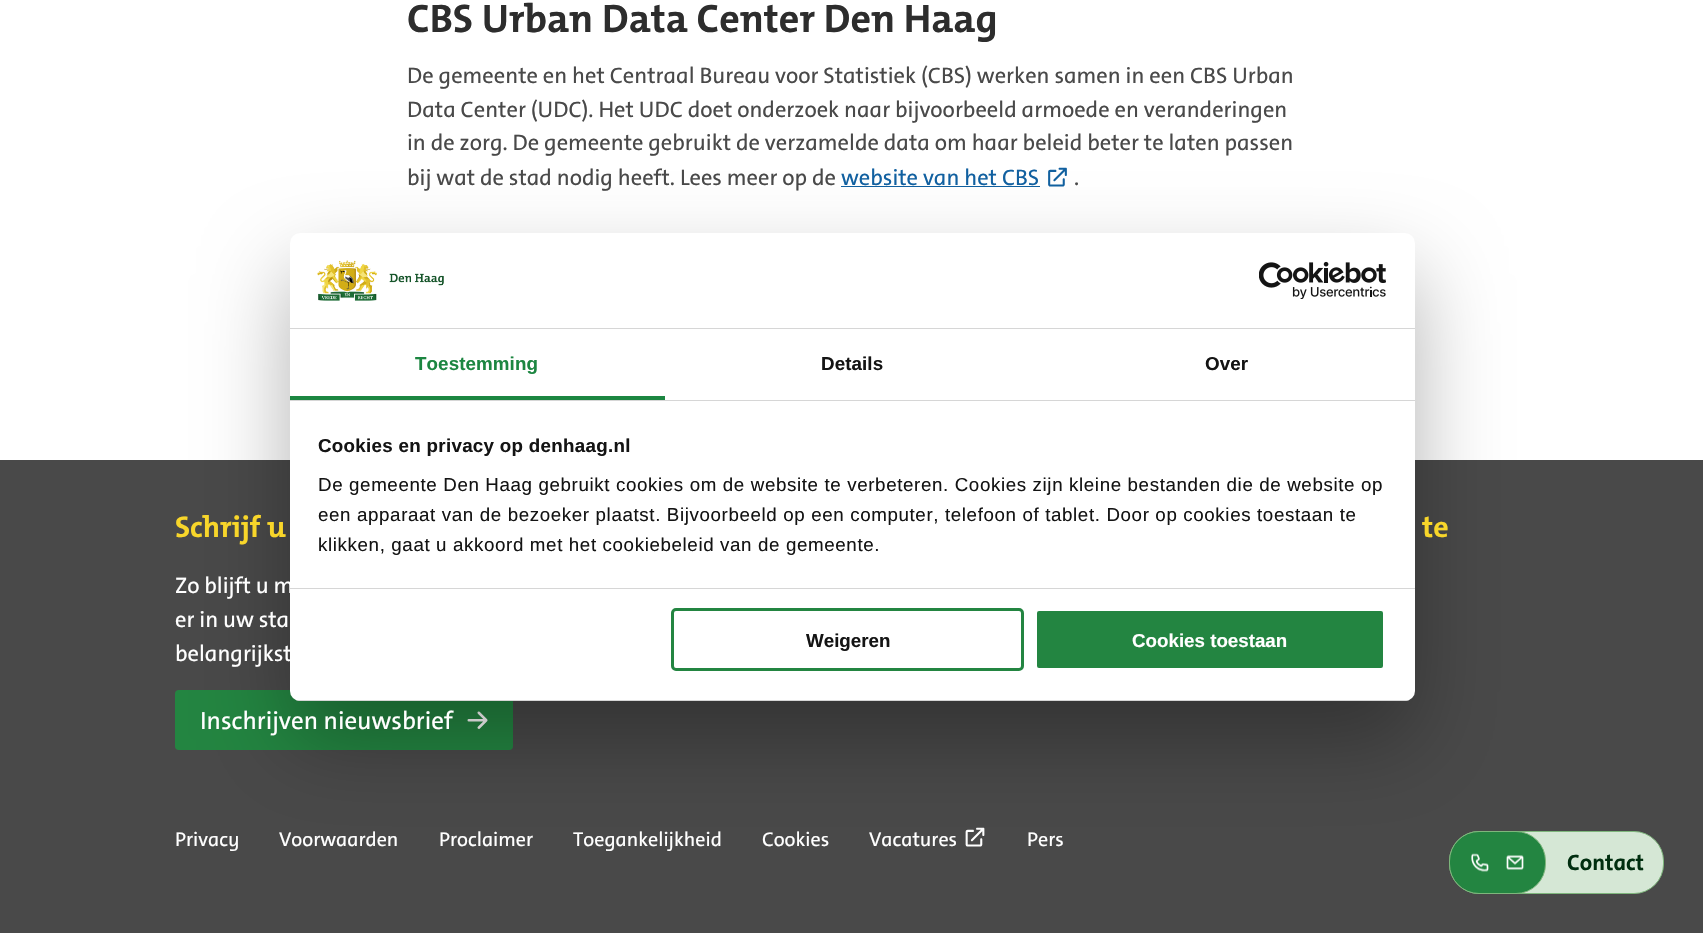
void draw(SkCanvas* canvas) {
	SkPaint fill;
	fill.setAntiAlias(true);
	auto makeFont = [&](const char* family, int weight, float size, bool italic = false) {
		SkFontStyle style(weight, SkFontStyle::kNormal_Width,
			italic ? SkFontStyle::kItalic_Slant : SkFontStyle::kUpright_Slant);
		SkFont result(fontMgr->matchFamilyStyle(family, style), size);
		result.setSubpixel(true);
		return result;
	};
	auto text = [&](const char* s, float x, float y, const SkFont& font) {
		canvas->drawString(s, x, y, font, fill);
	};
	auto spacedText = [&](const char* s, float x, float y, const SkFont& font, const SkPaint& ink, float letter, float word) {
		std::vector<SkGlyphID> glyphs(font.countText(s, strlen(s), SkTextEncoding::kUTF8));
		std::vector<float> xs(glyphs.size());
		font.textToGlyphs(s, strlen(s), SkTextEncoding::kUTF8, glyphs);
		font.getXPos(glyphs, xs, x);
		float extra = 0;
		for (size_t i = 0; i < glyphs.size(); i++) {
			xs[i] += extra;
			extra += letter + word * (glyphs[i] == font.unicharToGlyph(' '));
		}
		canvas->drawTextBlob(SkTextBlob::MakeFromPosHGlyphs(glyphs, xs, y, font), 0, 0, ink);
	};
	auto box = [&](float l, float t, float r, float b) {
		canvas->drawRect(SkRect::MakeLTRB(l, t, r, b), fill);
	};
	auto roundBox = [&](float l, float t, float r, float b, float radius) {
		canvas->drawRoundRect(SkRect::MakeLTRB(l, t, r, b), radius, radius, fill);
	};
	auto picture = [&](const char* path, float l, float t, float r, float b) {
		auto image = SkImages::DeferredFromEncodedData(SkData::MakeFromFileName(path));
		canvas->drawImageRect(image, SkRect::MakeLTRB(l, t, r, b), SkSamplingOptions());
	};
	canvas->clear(0xFFFFFFFF);
	fill.setColor(0xFF1160A0);
	box(841, 186, 1040, 187);
	picture("image0.png", 1048, 167, 1067, 187);
	fill.setColor(0xFF494949);
	box(0, 460, 1703, 933);
	fill.setColor(0xFF238541);
	roundBox(175, 690, 513, 750, 4);
	picture("image3.png", 467, 711, 488, 729);
	picture("image4.png", 965, 827, 985, 847);
	fill.setColor(0xFFD5E7D5);
	canvas->drawRoundRect(SkRect::MakeLTRB(1449.5f, 831.5f, 1663.5f, 893.5f), 29.5f, 29.5f, fill);
	fill.setStyle(SkPaint::kStroke_Style);
	fill.setStrokeWidth(1);
	fill.setColor(0xFF7EB67C);
	canvas->drawRoundRect(SkRect::MakeLTRB(1449.5f, 831.5f, 1663.5f, 893.5f), 29.5f, 29.5f, fill);
	fill.setStyle(SkPaint::kFill_Style);
	fill.setColor(0xFF238541);
	canvas->drawRoundRect(SkRect::MakeLTRB(1449.5f, 831.5f, 1545.5f, 893.5f), 29.5f, 29.5f, fill);
	fill.setStyle(SkPaint::kStroke_Style);
	fill.setColor(0xFF7EB67C);
	canvas->drawRoundRect(SkRect::MakeLTRB(1449.5f, 831.5f, 1545.5f, 893.5f), 29.5f, 29.5f, fill);
	picture("image5.png", 1471, 853, 1489, 872);
	picture("image6.png", 1506, 855, 1524, 870);
	fill.setStyle(SkPaint::kFill_Style);
	fill.setColor(0x4D000000);
	fill.setMaskFilter(SkMaskFilter::MakeBlur(kNormal_SkBlurStyle, 42.5f));
	canvas->drawRoundRect(SkRect::MakeLTRB(290, 273, 1415, 741), 10, 10, fill);
	fill.setMaskFilter(nullptr);
	fill.setColor(0xFFFFFFFF);
	roundBox(290, 233, 1415, 701, 10);
	fill.setColor(0xFFD6D6D6);
	box(290, 328, 1415, 329);
	picture("image1.png", 317, 260, 444, 301);
	picture("image2.png", 1259, 261, 1386, 299);
	box(290, 400, 1415, 401);
	fill.setColor(0xFF1C8641);
	box(290, 396, 665, 400);
	canvas->save();
	canvas->clipPath(SkPathBuilder().moveTo(300, 233).lineTo(1405, 233).cubicTo(1410.5f, 233, 1415, 237.5f, 1415, 243).lineTo(1415, 691).cubicTo(1415, 696.5f, 1410.5f, 701, 1405, 701).lineTo(300, 701).cubicTo(294.5f, 701, 290, 696.5f, 290, 691).lineTo(290, 243).cubicTo(290, 237.5f, 294.5f, 233, 300, 233).close().detach(), true);
	fill.setColor(0xFFD6D6D6);
	box(290, 700, 1415, 701);
	canvas->restore();
	fill.setStyle(SkPaint::kStroke_Style);
	fill.setStrokeWidth(3);
	fill.setColor(0xFF238541);
	canvas->drawRoundRect(SkRect::MakeLTRB(672.5f, 609.5f, 1022.5f, 669.5f), 3.5f, 3.5f, fill);
	fill.setStyle(SkPaint::kFill_Style);
	canvas->drawRoundRect(SkRect::MakeLTRB(1035.5f, 609.5f, 1384.5f, 669.5f), 3.5f, 3.5f, fill);
	fill.setStyle(SkPaint::kStroke_Style);
	fill.setColor(0xFFFFFFFF);
	canvas->drawRoundRect(SkRect::MakeLTRB(1035.5f, 609.5f, 1384.5f, 669.5f), 3.5f, 3.5f, fill);
	auto font1 = makeFont("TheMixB", 700, 40);
	fill.setStyle(SkPaint::kFill_Style);
	fill.setColor(0xFF2D2D2D);
	text("CBS Urban Data Center Den Haag", 407, 32, font1);
	auto font2 = makeFont("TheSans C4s", 400, 22.5f);
	fill.setColor(0xFF494949);
	text("De gemeente en het Centraal Bureau voor Statistiek (CBS) werken samen in een CBS Urban", 407, 83, font2);
	text("Data Center (UDC). Het UDC doet onderzoek naar bijvoorbeeld armoede en veranderingen", 407, 117, font2);
	text("in de zorg. De gemeente gebruikt de verzamelde data om haar beleid beter te laten passen", 407, 150, font2);
	text("bij wat de stad nodig heeft. Lees meer op de", 407, 185, font2);
	fill.setColor(0xFF1160A0);
	text("website van het CBS", 841, 185, font2);
	fill.setColor(0xFF494949);
	text(".", 1074, 185, font2);
	auto font3 = makeFont("Liberation Sans", 700, 18.75f);
	fill.setColor(0xFF1C8641);
	spacedText("Toestemming", 415, 370, font3, fill, 0.1f, 0);
	fill.setColor(0xFF141414);
	spacedText("Details", 821, 370, font3, fill, 0.1f, 0);
	spacedText("Over", 1205, 370, font3, fill, 0.1f, 0);
	spacedText("Cookies en privacy op denhaag.nl", 318, 452, font3, fill, 0.3f, 0);
	auto font4 = makeFont("Liberation Sans", 400, 18.75f);
	spacedText("De gemeente Den Haag gebruikt cookies om de website te verbeteren. Cookies zijn kleine bestanden die de website op", 318, 491, font4, fill, 0.62f, 0);
	spacedText("een apparaat van de bezoeker plaatst. Bijvoorbeeld op een computer, telefoon of tablet. Door op cookies toestaan te", 318, 521, font4, fill, 0.62f, 0);
	spacedText("klikken, gaat u akkoord met het cookiebeleid van de gemeente.", 318, 551, font4, fill, 0.62f, 0);
	text("Weigeren", 806, 647, font3);
	fill.setColor(0xFFFFFFFF);
	text("Cookies toestaan", 1132, 647, font3);
	auto font5 = makeFont("TheMixB", 700, 30);
	fill.setColor(0xFFF8D62A);
	text("Schrijf u", 175, 537, font5);
	fill.setColor(0xFFFFFFFF);
	text("Zo blijft u m", 175, 593, font2);
	fill.setColor(0xFFD6D6D6);
	box(290, 588, 1415, 589);
	fill.setColor(0xFFFFFFFF);
	text("er in uw sta", 175, 627, font2);
	text("belangrijkst", 175, 661, font2);
	auto font6 = makeFont("TheSans C4s", 400, 25);
	text("Inschrijven nieuwsbrief", 200, 729, font6);
	fill.setColor(0xFFF8D62A);
	text("te", 1422, 537, font5);
	auto font7 = makeFont("TheSans C4s", 400, 20);
	fill.setColor(0xFFFFFFFF);
	text("Privacy", 175, 846, font7);
	text("Voorwaarden", 279, 846, font7);
	text("Proclaimer", 439, 846, font7);
	text("Toegankelijkheid", 573, 846, font7);
	text("Cookies", 762, 846, font7);
	text("Vacatures", 869, 846, font7);
	text("Pers", 1027, 846, font7);
	auto font8 = makeFont("TheSans C4s", 700, 22.5f);
	fill.setColor(0xFF002E0F);
	text("Contact", 1567, 870, font8);
}
